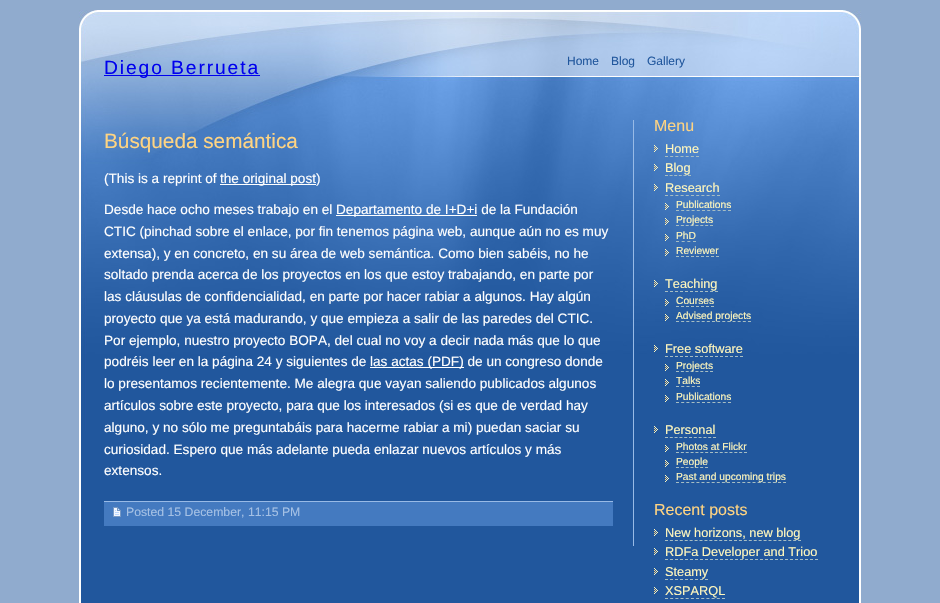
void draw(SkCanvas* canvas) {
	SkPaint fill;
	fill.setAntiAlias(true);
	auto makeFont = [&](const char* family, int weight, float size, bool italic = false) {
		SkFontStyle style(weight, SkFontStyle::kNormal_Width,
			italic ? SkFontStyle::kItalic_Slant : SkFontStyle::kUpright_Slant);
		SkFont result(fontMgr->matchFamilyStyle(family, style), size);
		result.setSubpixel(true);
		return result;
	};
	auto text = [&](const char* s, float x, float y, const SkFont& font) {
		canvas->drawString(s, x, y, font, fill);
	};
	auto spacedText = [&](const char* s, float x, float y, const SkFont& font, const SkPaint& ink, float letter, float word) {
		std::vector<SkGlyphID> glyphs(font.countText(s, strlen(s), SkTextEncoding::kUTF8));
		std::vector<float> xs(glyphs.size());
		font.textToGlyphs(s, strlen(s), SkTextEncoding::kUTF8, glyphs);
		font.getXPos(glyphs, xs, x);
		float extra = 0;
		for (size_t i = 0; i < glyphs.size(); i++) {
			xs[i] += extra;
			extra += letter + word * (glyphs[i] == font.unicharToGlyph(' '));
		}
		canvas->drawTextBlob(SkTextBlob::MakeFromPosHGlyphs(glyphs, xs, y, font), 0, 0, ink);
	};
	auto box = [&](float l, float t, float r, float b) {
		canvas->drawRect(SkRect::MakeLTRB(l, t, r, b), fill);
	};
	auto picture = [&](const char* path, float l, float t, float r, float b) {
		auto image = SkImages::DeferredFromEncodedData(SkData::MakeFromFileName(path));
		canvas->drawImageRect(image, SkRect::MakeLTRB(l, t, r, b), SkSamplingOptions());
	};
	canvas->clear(0xFF90ABCE);
	fill.setColor(0xFF21579D);
	box(81, 431, 859, 603);
	picture("image0.png", 79, 10, 861, 431);
	fill.setColor(0xFF0000EE);
	box(104, 75, 260, 76);
	picture("image1.png", 79, 431, 861, 603);
	fill.setColor(0xFF98BAE6);
	box(633, 120, 634, 546);
	fill.setColor(0xFFFFFFFF);
	box(220, 184, 316, 185);
	box(336, 215, 477, 216);
	box(370, 367, 464, 368);
	fill.setColor(0xFF447AC0);
	box(104, 502, 613, 526);
	fill.setColor(0xFF98BAE6);
	box(104, 501, 613, 502);
	picture("image2.png", 113, 507, 121, 517);
	picture("image3.png", 654, 145, 658, 152);
	fill.setStyle(SkPaint::kStroke_Style);
	fill.setStrokeWidth(1);
	fill.setColor(0xFFA6BDC3);
	fill.setPathEffect(SkDashPathEffect::Make({{3, 2.17f}}, 0));
	canvas->drawPath(SkPathBuilder().moveTo(665, 156.5f).lineTo(699, 156.5f).detach(), fill);
	fill.setPathEffect(nullptr);
	picture("image4.png", 654, 164, 658, 171);
	fill.setPathEffect(SkDashPathEffect::Make({{3, 1.6f}}, 0));
	canvas->drawPath(SkPathBuilder().moveTo(665, 175.5f).lineTo(691, 175.5f).detach(), fill);
	fill.setPathEffect(nullptr);
	picture("image5.png", 654, 184, 658, 191);
	fill.setPathEffect(SkDashPathEffect::Make({{3, 2.2f}}, 0));
	canvas->drawPath(SkPathBuilder().moveTo(665, 195.5f).lineTo(720, 195.5f).detach(), fill);
	fill.setPathEffect(nullptr);
	picture("image6.png", 665, 203, 669, 210);
	fill.setPathEffect(SkDashPathEffect::Make({{3, 2.2f}}, 0));
	canvas->drawPath(SkPathBuilder().moveTo(676, 210.5f).lineTo(731, 210.5f).detach(), fill);
	fill.setPathEffect(nullptr);
	picture("image7.png", 665, 218, 669, 225);
	fill.setPathEffect(SkDashPathEffect::Make({{3, 1.86f}}, 0));
	canvas->drawPath(SkPathBuilder().moveTo(676, 225.5f).lineTo(713, 225.5f).detach(), fill);
	fill.setPathEffect(nullptr);
	picture("image8.png", 665, 234, 669, 241);
	fill.setPathEffect(SkDashPathEffect::Make({{3, 2.67f}}, 0));
	canvas->drawPath(SkPathBuilder().moveTo(676, 241.5f).lineTo(696, 241.5f).detach(), fill);
	fill.setPathEffect(nullptr);
	picture("image9.png", 665, 249, 669, 256);
	fill.setPathEffect(SkDashPathEffect::Make({{3, 2}}, 0));
	canvas->drawPath(SkPathBuilder().moveTo(676, 256.5f).lineTo(719, 256.5f).detach(), fill);
	fill.setPathEffect(nullptr);
	picture("image10.png", 654, 280, 658, 287);
	fill.setPathEffect(SkDashPathEffect::Make({{3, 2}}, 0));
	canvas->drawPath(SkPathBuilder().moveTo(665, 291.5f).lineTo(718, 291.5f).detach(), fill);
	fill.setPathEffect(nullptr);
	picture("image11.png", 665, 299, 669, 306);
	fill.setPathEffect(SkDashPathEffect::Make({{3, 2}}, 0));
	canvas->drawPath(SkPathBuilder().moveTo(676, 306.5f).lineTo(714, 306.5f).detach(), fill);
	fill.setPathEffect(nullptr);
	picture("image12.png", 665, 314, 669, 321);
	fill.setPathEffect(SkDashPathEffect::Make({{3, 2.14f}}, 0));
	canvas->drawPath(SkPathBuilder().moveTo(676, 321.5f).lineTo(751, 321.5f).detach(), fill);
	fill.setPathEffect(nullptr);
	picture("image13.png", 654, 345, 658, 352);
	fill.setPathEffect(SkDashPathEffect::Make({{3, 2}}, 0));
	canvas->drawPath(SkPathBuilder().moveTo(665, 356.5f).lineTo(743, 356.5f).detach(), fill);
	fill.setPathEffect(nullptr);
	picture("image14.png", 665, 364, 669, 371);
	fill.setPathEffect(SkDashPathEffect::Make({{3, 1.86f}}, 0));
	canvas->drawPath(SkPathBuilder().moveTo(676, 371.5f).lineTo(713, 371.5f).detach(), fill);
	fill.setPathEffect(nullptr);
	picture("image14.png", 665, 379, 669, 386);
	fill.setPathEffect(SkDashPathEffect::Make({{3, 2.25f}}, 0));
	canvas->drawPath(SkPathBuilder().moveTo(676, 386.5f).lineTo(700, 386.5f).detach(), fill);
	fill.setPathEffect(nullptr);
	picture("image14.png", 665, 395, 669, 402);
	fill.setPathEffect(SkDashPathEffect::Make({{3, 2.2f}}, 0));
	canvas->drawPath(SkPathBuilder().moveTo(676, 402.5f).lineTo(731, 402.5f).detach(), fill);
	fill.setPathEffect(nullptr);
	picture("image14.png", 654, 426, 658, 433);
	fill.setPathEffect(SkDashPathEffect::Make({{3, 1.8f}}, 0));
	canvas->drawPath(SkPathBuilder().moveTo(665, 437.5f).lineTo(716, 437.5f).detach(), fill);
	fill.setPathEffect(nullptr);
	picture("image14.png", 665, 445, 669, 452);
	fill.setPathEffect(SkDashPathEffect::Make({{3, 1.86f}}, 0));
	canvas->drawPath(SkPathBuilder().moveTo(676, 452.5f).lineTo(747, 452.5f).detach(), fill);
	fill.setPathEffect(nullptr);
	picture("image14.png", 665, 460, 669, 467);
	fill.setPathEffect(SkDashPathEffect::Make({{3, 1.83f}}, 0));
	canvas->drawPath(SkPathBuilder().moveTo(676, 467.5f).lineTo(708, 467.5f).detach(), fill);
	fill.setPathEffect(nullptr);
	picture("image14.png", 665, 475, 669, 482);
	fill.setPathEffect(SkDashPathEffect::Make({{3, 2.1f}}, 0));
	canvas->drawPath(SkPathBuilder().moveTo(676, 482.5f).lineTo(786, 482.5f).detach(), fill);
	fill.setPathEffect(nullptr);
	picture("image14.png", 654, 529, 658, 536);
	fill.setPathEffect(SkDashPathEffect::Make({{3, 1.93f}}, 0));
	canvas->drawPath(SkPathBuilder().moveTo(665, 540.5f).lineTo(801, 540.5f).detach(), fill);
	fill.setPathEffect(nullptr);
	picture("image14.png", 654, 548, 658, 555);
	fill.setPathEffect(SkDashPathEffect::Make({{3, 2}}, 0));
	canvas->drawPath(SkPathBuilder().moveTo(665, 559.5f).lineTo(818, 559.5f).detach(), fill);
	fill.setPathEffect(nullptr);
	picture("image14.png", 654, 568, 658, 575);
	fill.setPathEffect(SkDashPathEffect::Make({{3, 2}}, 0));
	canvas->drawPath(SkPathBuilder().moveTo(665, 579.5f).lineTo(708, 579.5f).detach(), fill);
	fill.setPathEffect(nullptr);
	picture("image14.png", 654, 587, 658, 594);
	fill.setPathEffect(SkDashPathEffect::Make({{3, 2.18f}}, 0));
	canvas->drawPath(SkPathBuilder().moveTo(665, 598.5f).lineTo(725, 598.5f).detach(), fill);
	fill.setPathEffect(nullptr);
	auto font1 = makeFont("Liberation Sans", 400, 19.25f);
	fill.setStyle(SkPaint::kFill_Style);
	fill.setColor(0xFF0000EE);
	spacedText("Diego Berrueta", 104, 74, font1, fill, 1.9f, 0);
	auto font2 = makeFont("Liberation Sans", 400, 12);
	fill.setColor(0xFF21579D);
	text("Home", 567, 65, font2);
	text("Blog", 611, 65, font2);
	text("Gallery", 647, 65, font2);
	auto font3 = makeFont("Liberation Sans", 400, 20.75f);
	fill.setColor(0xFFFFD482);
	text("Búsqueda semántica", 104, 148, font3);
	auto font4 = makeFont("Liberation Sans", 400, 13.6f);
	fill.setColor(0xFFFFFFFF);
	text("(This is a reprint of", 104, 183, font4);
	text("the original post)", 220, 183, font4);
	text("Desde hace ocho meses trabajo en el", 104, 214, font4);
	text("Departamento de I+D+i de la Fundación", 336, 214, font4);
	text("CTIC (pinchad sobre el enlace, por fin tenemos página web, aunque aún no es muy", 104, 236, font4);
	text("extensa), y en concreto, en su área de web semántica. Como bien sabéis, no he", 104, 258, font4);
	text("soltado prenda acerca de los proyectos en los que estoy trabajando, en parte por", 104, 279, font4);
	text("las cláusulas de confidencialidad, en parte por hacer rabiar a algunos. Hay algún", 104, 301, font4);
	text("proyecto que ya está madurando, y que empieza a salir de las paredes del CTIC.", 104, 323, font4);
	text("Por ejemplo, nuestro proyecto BOPA, del cual no voy a decir nada más que lo que", 104, 345, font4);
	text("podréis leer en la página 24 y siguientes de", 104, 366, font4);
	text("las actas (PDF) de un congreso donde", 370, 366, font4);
	text("lo presentamos recientemente. Me alegra que vayan saliendo publicados algunos", 104, 388, font4);
	text("artículos sobre este proyecto, para que los interesados (si es que de verdad hay", 104, 410, font4);
	text("alguno, y no sólo me preguntabáis para hacerme rabiar a mi) puedan saciar su", 104, 432, font4);
	text("curiosidad. Espero que más adelante pueda enlazar nuevos artículos y más", 104, 454, font4);
	text("extensos.", 104, 475, font4);
	auto font5 = makeFont("Liberation Sans", 400, 12.25f);
	fill.setColor(0xFFA5C1E5);
	text("Posted 15 December, 11:15 PM", 126, 516, font5);
	auto font6 = makeFont("Liberation Sans", 400, 16);
	fill.setColor(0xFFFFD482);
	text("Menu", 654, 131, font6);
	auto font7 = makeFont("Liberation Sans", 400, 12.75f);
	fill.setColor(0xFFFFF7BD);
	text("Home", 665, 153, font7);
	text("Blog", 665, 172, font7);
	text("Research", 665, 192, font7);
	auto font8 = makeFont("Liberation Sans", 400, 10.25f);
	text("Publications", 676, 208, font8);
	text("Projects", 676, 223, font8);
	text("PhD", 676, 239, font8);
	text("Reviewer", 676, 254, font8);
	text("Teaching", 665, 288, font7);
	text("Courses", 676, 304, font8);
	text("Advised projects", 676, 319, font8);
	text("Free software", 665, 353, font7);
	text("Projects", 676, 369, font8);
	text("Talks", 676, 384, font8);
	text("Publications", 676, 400, font8);
	text("Personal", 665, 434, font7);
	text("Photos at Flickr", 676, 450, font8);
	text("People", 676, 465, font8);
	text("Past and upcoming trips", 676, 480, font8);
	fill.setColor(0xFFFFD482);
	text("Recent posts", 654, 515, font6);
	fill.setColor(0xFFFFF7BD);
	text("New horizons, new blog", 665, 537, font7);
	text("RDFa Developer and Trioo", 665, 556, font7);
	text("Steamy", 665, 576, font7);
	text("XSPARQL", 665, 595, font7);
}
